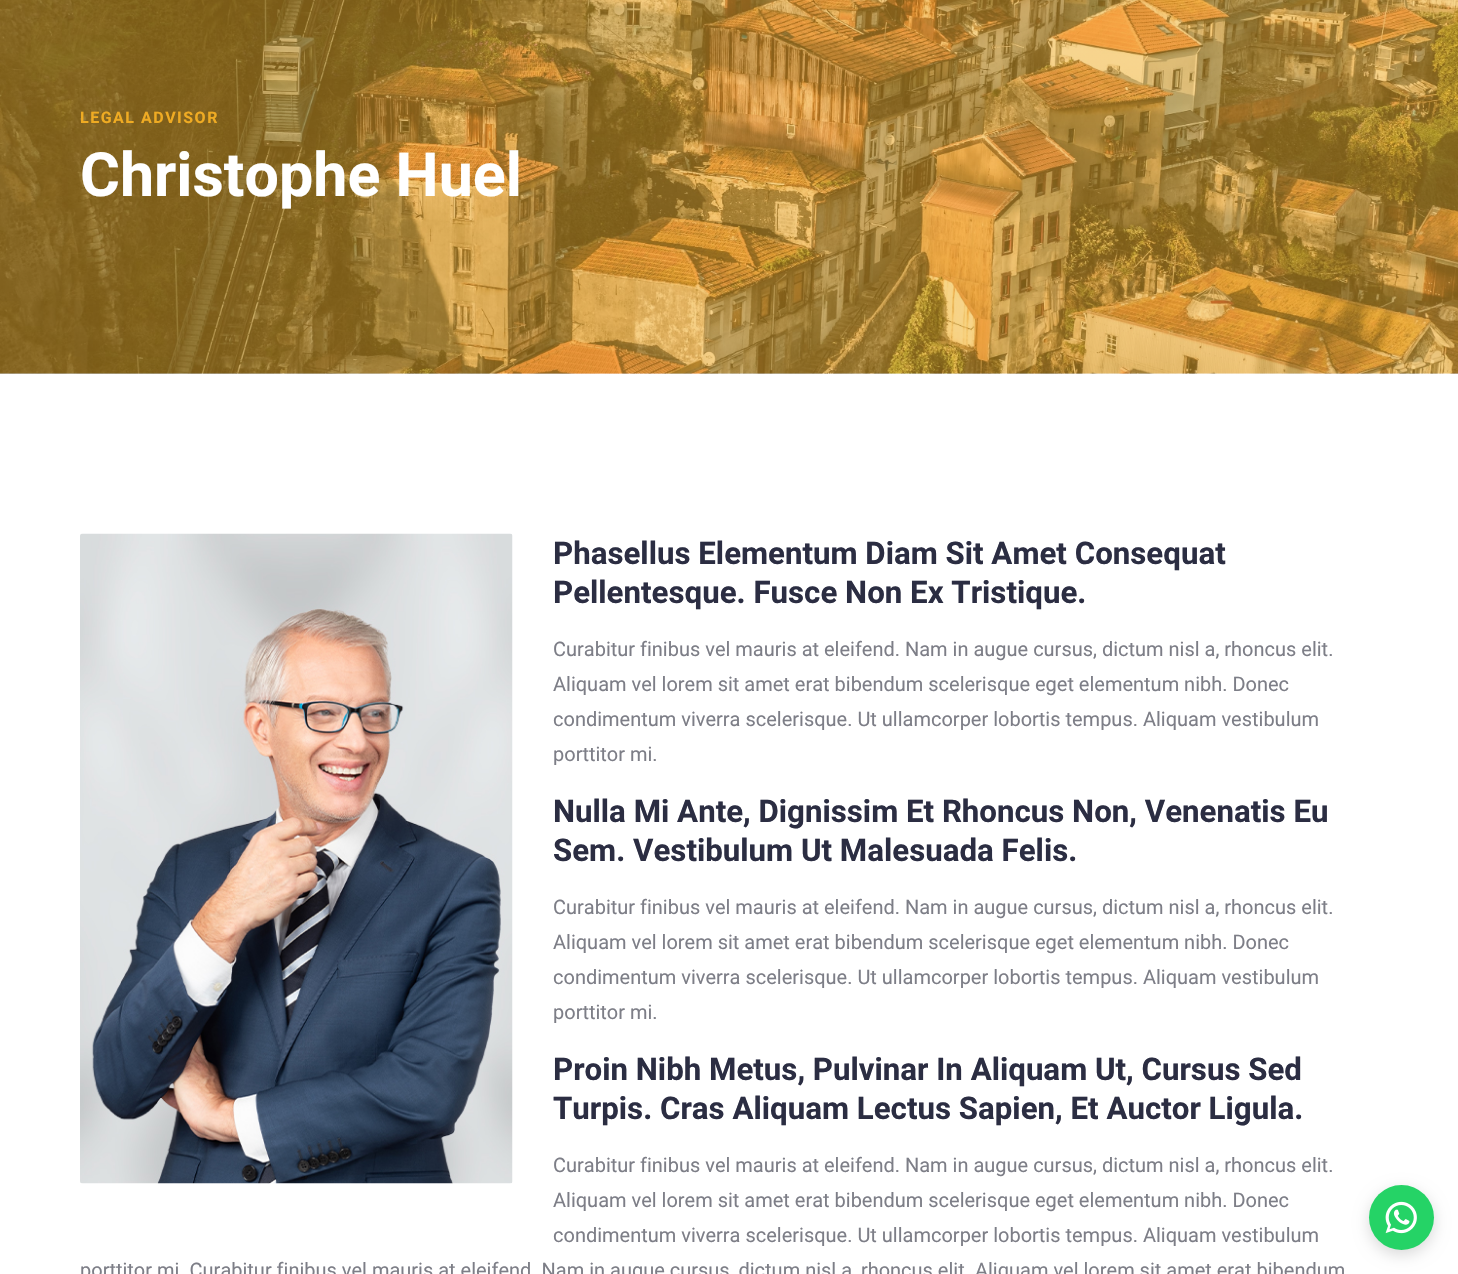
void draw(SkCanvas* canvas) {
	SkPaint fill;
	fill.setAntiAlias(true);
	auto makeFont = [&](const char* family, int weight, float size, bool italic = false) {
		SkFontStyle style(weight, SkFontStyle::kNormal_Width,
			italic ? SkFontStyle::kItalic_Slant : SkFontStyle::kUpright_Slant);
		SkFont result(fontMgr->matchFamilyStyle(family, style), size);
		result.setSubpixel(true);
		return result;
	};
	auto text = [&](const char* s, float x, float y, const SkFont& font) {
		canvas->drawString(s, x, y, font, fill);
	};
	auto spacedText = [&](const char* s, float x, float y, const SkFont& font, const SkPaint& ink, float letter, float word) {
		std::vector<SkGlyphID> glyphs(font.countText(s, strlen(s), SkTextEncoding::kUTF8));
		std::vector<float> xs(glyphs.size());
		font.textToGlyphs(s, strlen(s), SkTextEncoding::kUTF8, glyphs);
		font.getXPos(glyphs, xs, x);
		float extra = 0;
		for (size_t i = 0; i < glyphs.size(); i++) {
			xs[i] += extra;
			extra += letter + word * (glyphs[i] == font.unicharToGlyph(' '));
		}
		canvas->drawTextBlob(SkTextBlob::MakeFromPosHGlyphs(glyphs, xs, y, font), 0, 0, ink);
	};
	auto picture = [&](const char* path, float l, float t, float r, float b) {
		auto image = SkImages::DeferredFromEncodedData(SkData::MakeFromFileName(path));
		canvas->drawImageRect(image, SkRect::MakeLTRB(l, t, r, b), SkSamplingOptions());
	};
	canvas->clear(0xFFFFFFFF);
	picture("image0.png", 0, 0, 1458, 374);
	picture("image1.png", 80, 533, 513, 1184);
	fill.setColor(0x26000000);
	fill.setMaskFilter(SkMaskFilter::MakeBlur(kNormal_SkBlurStyle, 7.5f));
	canvas->drawRoundRect(SkRect::MakeLTRB(1369, 1190, 1434, 1255), 32.5f, 32.5f, fill);
	fill.setMaskFilter(nullptr);
	fill.setColor(0xFF25D366);
	canvas->drawCircle(1401.5f, 1217.5f, 32.5f, fill);
	picture("image2.png", 1385, 1201, 1417, 1234);
	auto font1 = makeFont("Roboto", 700, 16);
	fill.setColor(0xFFEFAB23);
	spacedText("LEGAL ADVISOR", 80, 123, font1, fill, 1.5f, 0);
	auto font2 = makeFont("Roboto", 700, 61);
	fill.setColor(0xFFFFFFFF);
	text("Christophe Huel", 80, 196, font2);
	auto font3 = makeFont("Roboto", 700, 31.25f);
	fill.setColor(0xFF2B2D42);
	text("Phasellus Elementum Diam Sit Amet Consequat", 553, 564, font3);
	text("Pellentesque. Fusce Non Ex Tristique.", 553, 603, font3);
	auto font4 = makeFont("Roboto", 400, 20);
	fill.setColor(0xFF7D7E87);
	text("Curabitur finibus vel mauris at eleifend. Nam in augue cursus, dictum nisl a, rhoncus elit.", 553, 656, font4);
	text("Aliquam vel lorem sit amet erat bibendum scelerisque eget elementum nibh. Donec", 553, 691, font4);
	text("condimentum viverra scelerisque. Ut ullamcorper lobortis tempus. Aliquam vestibulum", 553, 726, font4);
	text("porttitor mi.", 553, 761, font4);
	fill.setColor(0xFF2B2D42);
	text("Nulla Mi Ante, Dignissim Et Rhoncus Non, Venenatis Eu", 553, 822, font3);
	text("Sem. Vestibulum Ut Malesuada Felis.", 553, 861, font3);
	fill.setColor(0xFF7D7E87);
	text("Curabitur finibus vel mauris at eleifend. Nam in augue cursus, dictum nisl a, rhoncus elit.", 553, 914, font4);
	text("Aliquam vel lorem sit amet erat bibendum scelerisque eget elementum nibh. Donec", 553, 949, font4);
	text("condimentum viverra scelerisque. Ut ullamcorper lobortis tempus. Aliquam vestibulum", 553, 984, font4);
	text("porttitor mi.", 553, 1019, font4);
	fill.setColor(0xFF2B2D42);
	text("Proin Nibh Metus, Pulvinar In Aliquam Ut, Cursus Sed", 553, 1080, font3);
	text("Turpis. Cras Aliquam Lectus Sapien, Et Auctor Ligula.", 553, 1119, font3);
	fill.setColor(0xFF7D7E87);
	text("Curabitur finibus vel mauris at eleifend. Nam in augue cursus, dictum nisl a, rhoncus elit.", 553, 1172, font4);
	text("Aliquam vel lorem sit amet erat bibendum scelerisque eget elementum nibh. Donec", 553, 1207, font4);
	text("condimentum viverra scelerisque. Ut ullamcorper lobortis tempus. Aliquam vestibulum", 553, 1242, font4);
	text("porttitor mi. Curabitur finibus vel mauris at eleifend. Nam in augue cursus, dictum nisl a, rhoncus elit. Aliquam vel lorem sit amet erat bibendum", 80, 1277, font4);
}
